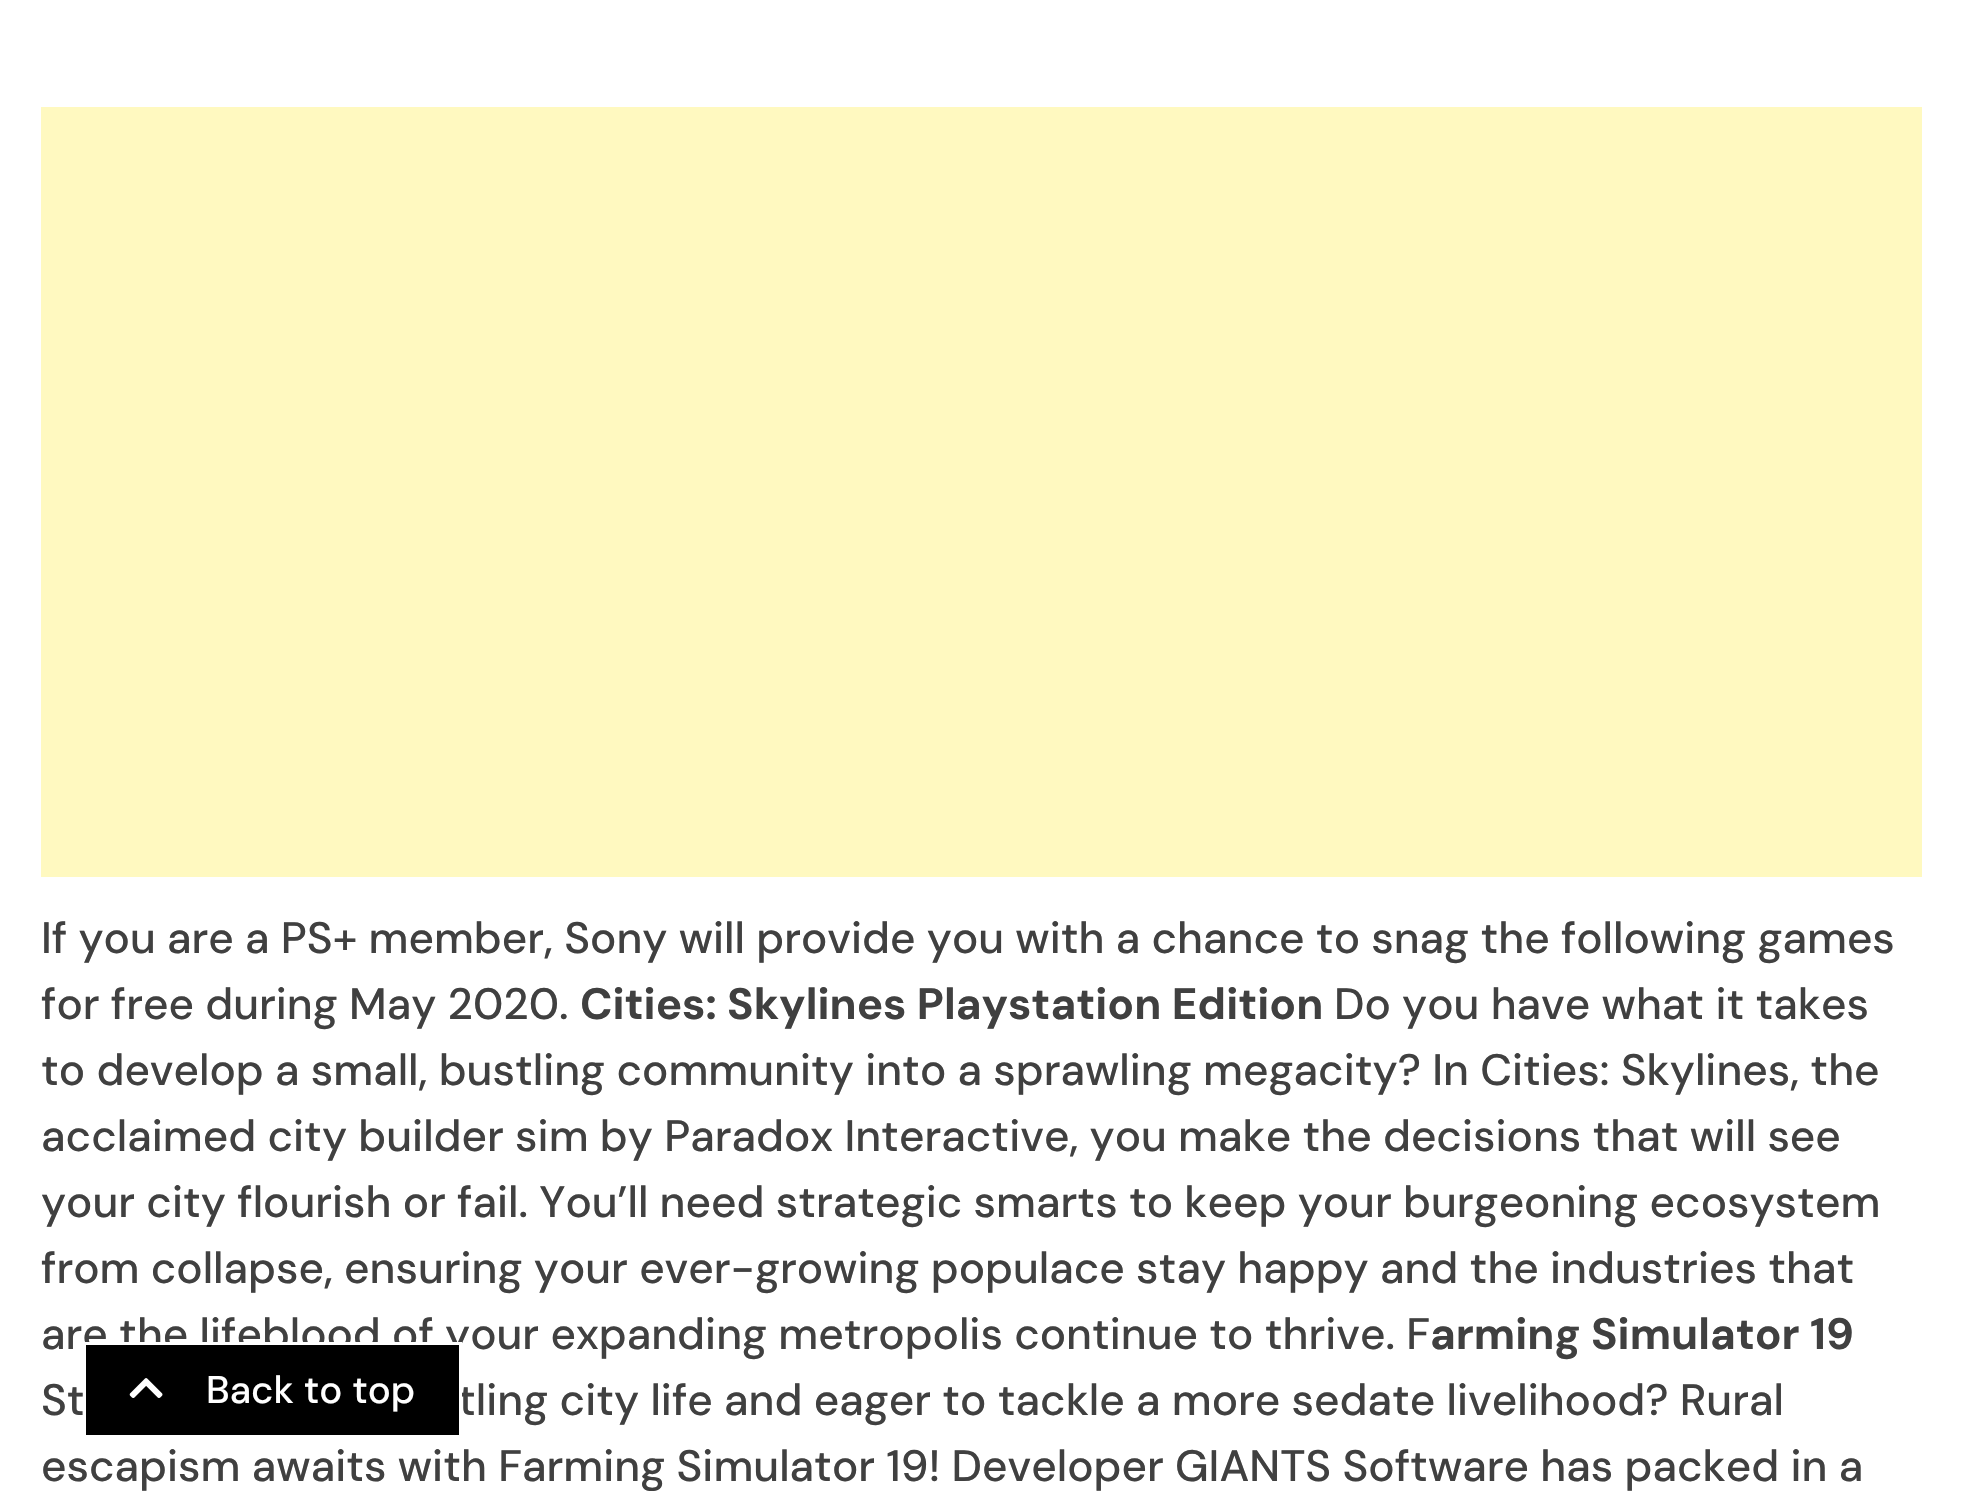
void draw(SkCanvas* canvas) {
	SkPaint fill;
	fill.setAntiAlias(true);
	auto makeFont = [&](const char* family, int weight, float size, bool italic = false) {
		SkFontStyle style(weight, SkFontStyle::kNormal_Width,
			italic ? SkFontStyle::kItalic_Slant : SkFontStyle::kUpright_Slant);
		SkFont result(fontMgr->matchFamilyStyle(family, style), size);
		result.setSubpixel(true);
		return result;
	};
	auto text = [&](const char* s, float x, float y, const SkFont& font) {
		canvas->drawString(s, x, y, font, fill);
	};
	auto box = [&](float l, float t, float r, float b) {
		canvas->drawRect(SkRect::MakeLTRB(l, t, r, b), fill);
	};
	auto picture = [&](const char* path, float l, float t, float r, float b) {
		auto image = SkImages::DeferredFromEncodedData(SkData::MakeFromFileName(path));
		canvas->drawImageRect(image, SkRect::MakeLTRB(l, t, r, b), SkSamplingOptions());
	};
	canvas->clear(0xFFFFFFFF);
	fill.setColor(0xFFFFF9C0);
	box(41, 107, 1922, 877);
	auto font1 = makeFont("DM Sans", 500, 44);
	fill.setColor(0xFF404040);
	text("If you are a PS+ member, Sony will provide you with a chance to snag the following games", 41, 953, font1);
	text("for free during May 2020.", 41, 1019, font1);
	auto font2 = makeFont("DM Sans", 700, 44);
	text("Cities: Skylines Playstation Edition", 580, 1019, font2);
	text("Do you have what it takes", 1334, 1019, font1);
	text("to develop a small, bustling community into a sprawling megacity? In Cities: Skylines, the", 41, 1085, font1);
	text("acclaimed city builder sim by Paradox Interactive, you make the decisions that will see", 41, 1151, font1);
	text("your city flourish or fail. You’ll need strategic smarts to keep your burgeoning ecosystem", 41, 1217, font1);
	text("from collapse, ensuring your ever-growing populace stay happy and the industries that", 41, 1283, font1);
	text("are the lifeblood of your expanding metropolis continue to thrive. F", 41, 1349, font1);
	text("arming Simulator 19", 1430, 1349, font2);
	text("St", 41, 1415, font1);
	text("tling city life and eager to tackle a more sedate livelihood? Rural", 458, 1415, font1);
	text("escapism awaits with Farming Simulator 19! Developer GIANTS Software has packed in a", 41, 1481, font1);
	fill.setColor(0xFF000000);
	canvas->drawRect(SkRect::MakeLTRB(84.5f, 1343.5f, 460.5f, 1436.5f), fill);
	fill.setStyle(SkPaint::kStroke_Style);
	fill.setStrokeWidth(3);
	fill.setColor(0xFFFFFFFF);
	canvas->drawRect(SkRect::MakeLTRB(84.5f, 1343.5f, 460.5f, 1436.5f), fill);
	picture("image0.png", 129, 1378, 163, 1398);
	auto font3 = makeFont("DM Sans", 500, 38.5f);
	fill.setStyle(SkPaint::kFill_Style);
	text("Back to top", 206, 1403, font3);
}
